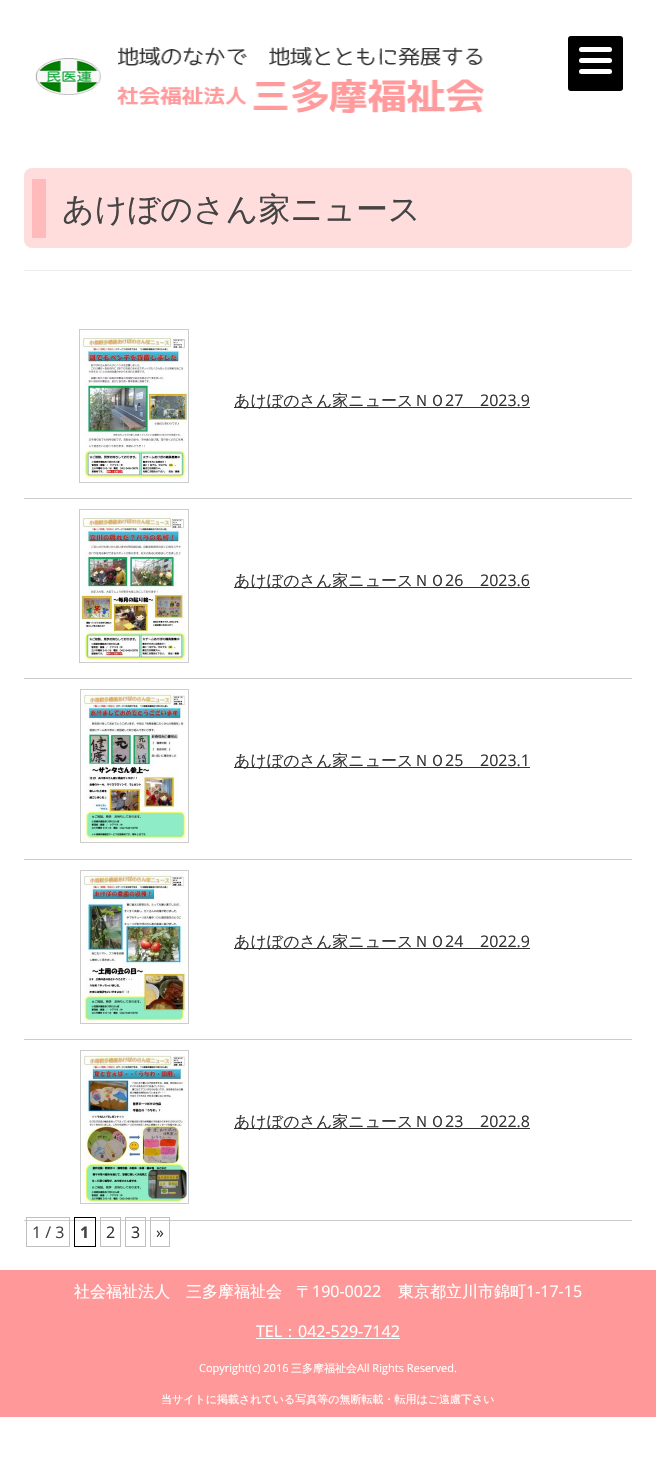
void draw(SkCanvas* canvas) {
	SkPaint fill;
	fill.setAntiAlias(true);
	auto makeFont = [&](const char* family, int weight, float size, bool italic = false) {
		SkFontStyle style(weight, SkFontStyle::kNormal_Width,
			italic ? SkFontStyle::kItalic_Slant : SkFontStyle::kUpright_Slant);
		SkFont result(fontMgr->matchFamilyStyle(family, style), size);
		result.setSubpixel(true);
		return result;
	};
	auto text = [&](const char* s, float x, float y, const SkFont& font) {
		canvas->drawString(s, x, y, font, fill);
	};
	auto box = [&](float l, float t, float r, float b) {
		canvas->drawRect(SkRect::MakeLTRB(l, t, r, b), fill);
	};
	auto roundBox = [&](float l, float t, float r, float b, float radius) {
		canvas->drawRoundRect(SkRect::MakeLTRB(l, t, r, b), radius, radius, fill);
	};
	auto picture = [&](const char* path, float l, float t, float r, float b) {
		auto image = SkImages::DeferredFromEncodedData(SkData::MakeFromFileName(path));
		canvas->drawImageRect(image, SkRect::MakeLTRB(l, t, r, b), SkSamplingOptions());
	};
	canvas->clear(0xFFFFFFFF);
	picture("image0.png", 35, 47, 484, 113);
	fill.setColor(0xFF000000);
	roundBox(568, 36, 623, 91, 3);
	fill.setColor(0xFFFFFFFF);
	roundBox(579, 58, 612, 63, 2.5f);
	roundBox(579, 47, 612, 52, 2.5f);
	roundBox(579, 69, 612, 74, 2.5f);
	fill.setColor(0xFFEDEDED);
	box(24, 270, 632, 271);
	fill.setColor(0xFFFFDDDD);
	roundBox(24, 168, 632, 248, 8);
	fill.setColor(0xFFFFBBBB);
	box(32, 179, 46, 238);
	fill.setColor(0xFFCCCCCC);
	box(24, 498, 632, 499);
	fill.setStyle(SkPaint::kStroke_Style);
	fill.setStrokeWidth(1);
	canvas->drawRect(SkRect::MakeLTRB(79.5f, 329.5f, 188.5f, 482.5f), fill);
	picture("image1.png", 81, 331, 187, 481);
	fill.setStyle(SkPaint::kFill_Style);
	fill.setColor(0xFF333333);
	box(234, 407, 530, 408);
	fill.setColor(0xFFCCCCCC);
	box(24, 678, 632, 679);
	fill.setStyle(SkPaint::kStroke_Style);
	canvas->drawRect(SkRect::MakeLTRB(79.5f, 509.5f, 188.5f, 662.5f), fill);
	picture("image2.png", 81, 511, 186, 661);
	fill.setStyle(SkPaint::kFill_Style);
	fill.setColor(0xFF333333);
	box(234, 587, 530, 588);
	fill.setColor(0xFFCCCCCC);
	box(24, 859, 632, 860);
	fill.setStyle(SkPaint::kStroke_Style);
	canvas->drawRect(SkRect::MakeLTRB(80.5f, 689.5f, 188.5f, 842.5f), fill);
	picture("image3.png", 82, 691, 186, 841);
	fill.setStyle(SkPaint::kFill_Style);
	fill.setColor(0xFF333333);
	box(234, 767, 530, 768);
	fill.setColor(0xFFCCCCCC);
	box(24, 1039, 632, 1040);
	fill.setStyle(SkPaint::kStroke_Style);
	canvas->drawRect(SkRect::MakeLTRB(80.5f, 870.5f, 188.5f, 1023.5f), fill);
	picture("image4.png", 82, 872, 186, 1022);
	fill.setStyle(SkPaint::kFill_Style);
	fill.setColor(0xFF333333);
	box(234, 948, 530, 949);
	fill.setColor(0xFFCCCCCC);
	box(24, 1220, 632, 1221);
	fill.setStyle(SkPaint::kStroke_Style);
	canvas->drawRect(SkRect::MakeLTRB(80.5f, 1050.5f, 188.5f, 1203.5f), fill);
	picture("image5.png", 82, 1052, 187, 1202);
	fill.setStyle(SkPaint::kFill_Style);
	fill.setColor(0xFF333333);
	box(234, 1128, 530, 1129);
	fill.setStyle(SkPaint::kStroke_Style);
	fill.setColor(0xFFBFBFBF);
	canvas->drawRect(SkRect::MakeLTRB(26.5f, 1217.5f, 69.5f, 1246.5f), fill);
	fill.setColor(0xFF000000);
	canvas->drawRect(SkRect::MakeLTRB(74.5f, 1217.5f, 95.5f, 1246.5f), fill);
	fill.setColor(0xFFBFBFBF);
	canvas->drawRect(SkRect::MakeLTRB(100.5f, 1217.5f, 120.5f, 1246.5f), fill);
	canvas->drawRect(SkRect::MakeLTRB(125.5f, 1217.5f, 145.5f, 1246.5f), fill);
	canvas->drawRect(SkRect::MakeLTRB(150.5f, 1217.5f, 169.5f, 1246.5f), fill);
	fill.setStyle(SkPaint::kFill_Style);
	fill.setColor(0xFFFF9999);
	box(0, 1270, 656, 1417);
	fill.setColor(0xFFFFFFFF);
	box(256, 1338, 400, 1339);
	auto font1 = makeFont("WenQuanYi Zen Hei", 500, 32);
	fill.setColor(0xFF444444);
	text("あけぼのさん家ニュース", 62, 220, font1);
	auto font2 = makeFont("WenQuanYi Zen Hei", 500, 16);
	fill.setColor(0xFF333333);
	text("あけぼのさん家ニュースＮＯ", 234, 406, font2);
	auto font3 = makeFont("Open Sans", 400, 16);
	text("27", 445, 406, font3);
	text("2023.9", 480, 406, font3);
	text("あけぼのさん家ニュースＮＯ", 234, 586, font2);
	text("26", 445, 586, font3);
	text("2023.6", 480, 586, font3);
	text("あけぼのさん家ニュースＮＯ", 234, 766, font2);
	text("25", 445, 766, font3);
	text("2023.1", 480, 766, font3);
	text("あけぼのさん家ニュースＮＯ", 234, 947, font2);
	text("24", 445, 947, font3);
	text("2022.9", 480, 947, font3);
	text("あけぼのさん家ニュースＮＯ", 234, 1127, font2);
	text("23", 445, 1127, font3);
	text("2022.8", 480, 1127, font3);
	fill.setColor(0xFF444444);
	text("1 / 3", 32, 1238, font3);
	auto font4 = makeFont("Open Sans", 700, 16);
	text("1", 80, 1238, font4);
	fill.setColor(0xFF333333);
	text("2", 106, 1238, font3);
	text("3", 131, 1238, font3);
	text("»", 156, 1238, font3);
	fill.setColor(0xFFFFFFFF);
	text("社会福祉法人　三多摩福祉会", 74, 1297, font2);
	text("〒", 296, 1297, font2);
	text("190-0022", 312, 1297, font3);
	text("東京都立川市錦町", 398, 1297, font2);
	text("1-17-15", 526, 1297, font3);
	text("TEL", 256, 1337, font3);
	text("：", 282, 1337, font2);
	text("042-529-7142", 298, 1337, font3);
	auto font5 = makeFont("Open Sans", 400, 11);
	text("Copyright(c) 2016", 199, 1372, font5);
	auto font6 = makeFont("WenQuanYi Zen Hei", 500, 11);
	text("三多摩福祉会", 291, 1372, font6);
	text("All Rights Reserved.", 357, 1372, font5);
	text("当サイトに掲載されている写真等の無断転載・転用はご遠慮下さい", 161, 1403, font6);
}
